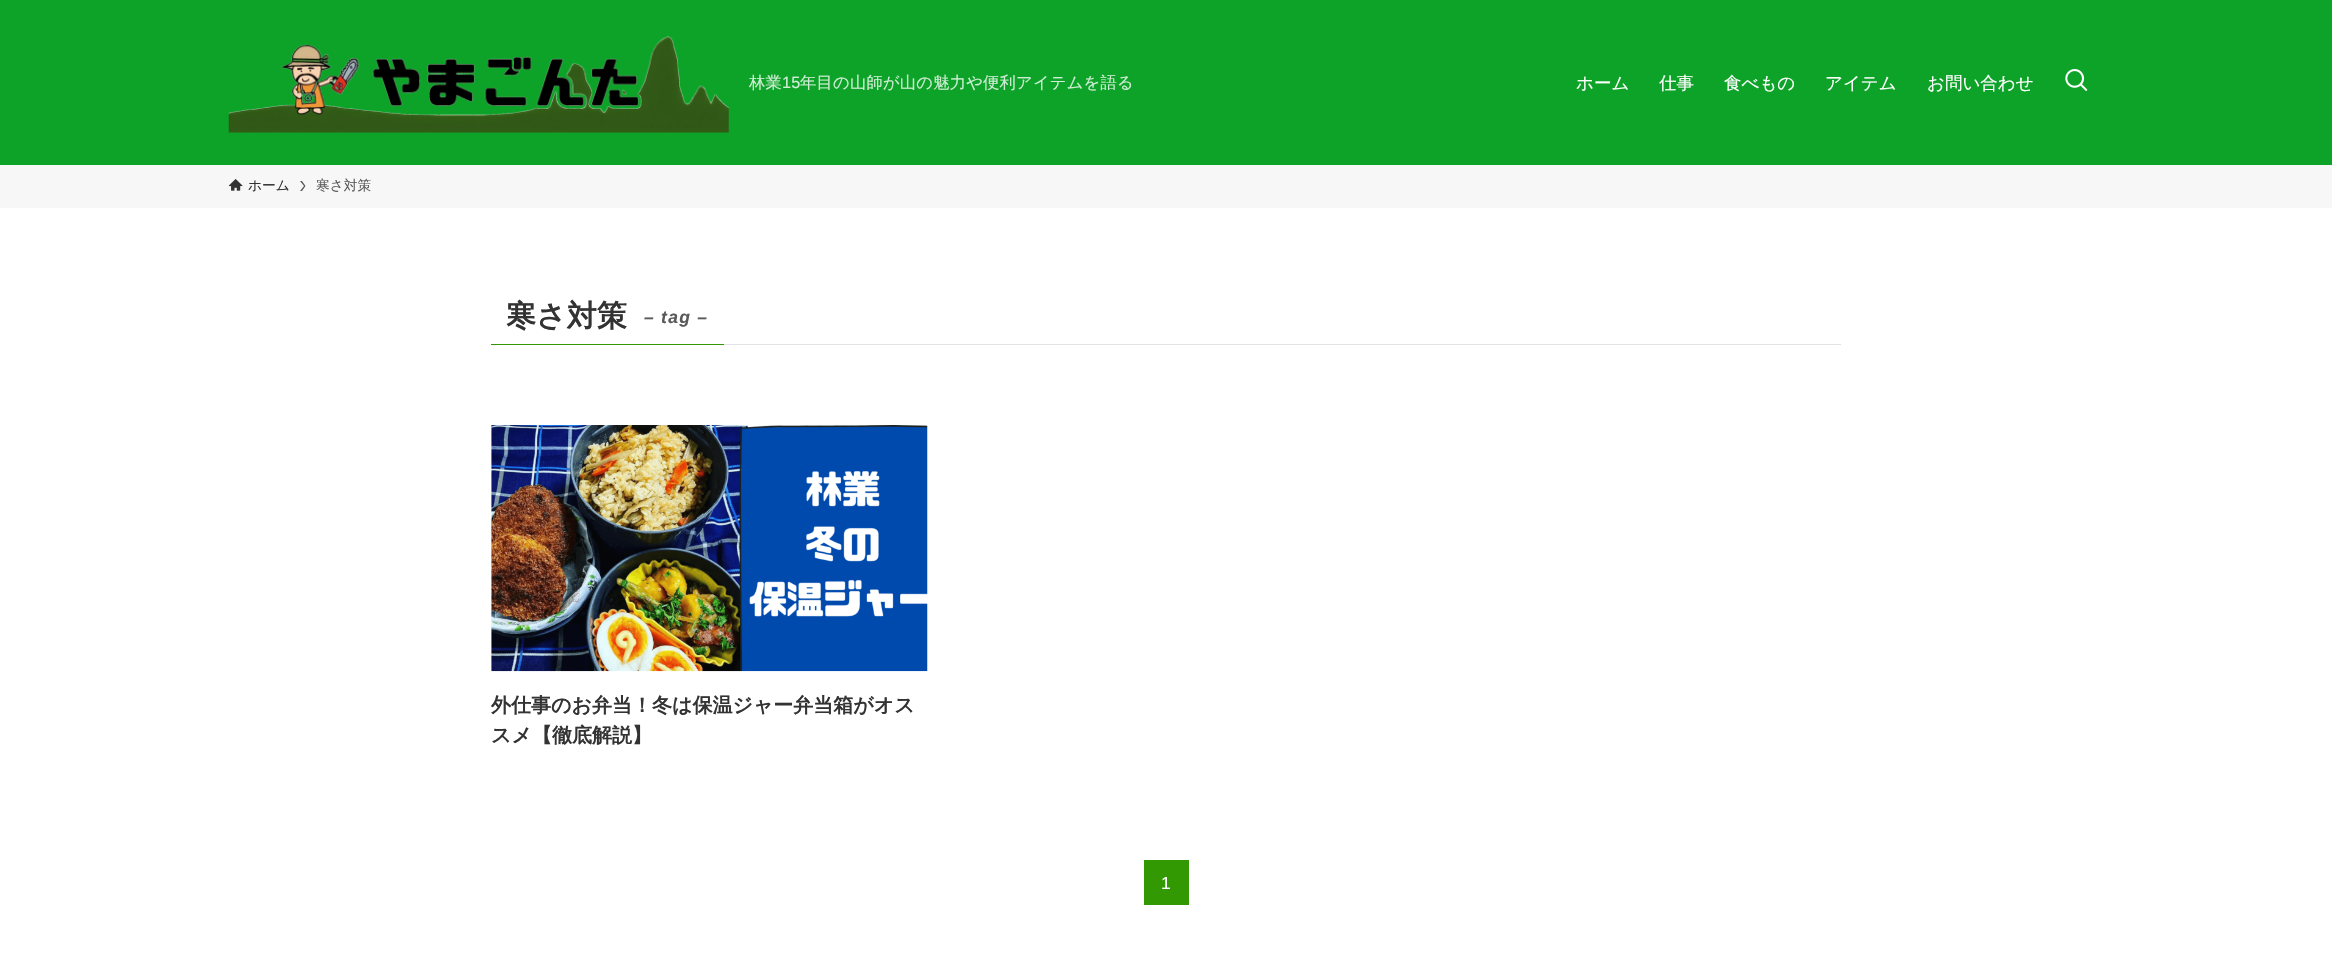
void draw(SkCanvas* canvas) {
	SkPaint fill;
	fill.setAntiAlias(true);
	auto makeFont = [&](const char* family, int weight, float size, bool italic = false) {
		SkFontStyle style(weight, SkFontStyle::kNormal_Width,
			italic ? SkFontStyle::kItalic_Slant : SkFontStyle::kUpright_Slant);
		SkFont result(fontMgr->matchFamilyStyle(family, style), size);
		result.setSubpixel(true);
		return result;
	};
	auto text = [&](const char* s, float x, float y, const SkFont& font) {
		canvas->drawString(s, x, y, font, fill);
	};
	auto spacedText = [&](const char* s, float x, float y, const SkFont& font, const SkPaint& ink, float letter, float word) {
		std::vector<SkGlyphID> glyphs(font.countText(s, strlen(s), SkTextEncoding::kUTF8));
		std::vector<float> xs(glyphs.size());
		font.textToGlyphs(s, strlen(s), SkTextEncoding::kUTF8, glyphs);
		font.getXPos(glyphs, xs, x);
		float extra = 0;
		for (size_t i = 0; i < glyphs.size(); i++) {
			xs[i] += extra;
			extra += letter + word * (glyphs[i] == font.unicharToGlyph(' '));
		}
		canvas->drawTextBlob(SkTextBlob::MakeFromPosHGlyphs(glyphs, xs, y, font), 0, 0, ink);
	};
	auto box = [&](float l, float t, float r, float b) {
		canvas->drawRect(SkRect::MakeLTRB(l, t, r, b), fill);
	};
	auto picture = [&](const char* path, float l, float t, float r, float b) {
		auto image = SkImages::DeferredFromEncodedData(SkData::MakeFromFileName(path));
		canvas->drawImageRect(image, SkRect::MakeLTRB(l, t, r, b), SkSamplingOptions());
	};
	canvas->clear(0xFFFFFFFF);
	fill.setColor(0xFF0DA328);
	box(0, 0, 2332, 165);
	picture("image0.png", 228, 36, 729, 133);
	picture("image1.png", 2065, 69, 2088, 91);
	fill.setColor(0xFFF7F7F7);
	box(0, 165, 2332, 208);
	picture("image2.png", 228, 179, 243, 191);
	fill.setColor(0xFF5A5A5A);
	canvas->drawPath(SkPathBuilder().moveTo(302, 181).lineTo(300, 181).lineTo(304, 186).lineTo(300, 191).lineTo(302, 191).lineTo(305.5f, 186).close().detach(), fill);
	fill.setColor(0xFFE3E3E3);
	box(724, 344, 1841, 345);
	fill.setColor(0xFF329903);
	box(491, 344, 724, 345);
	picture("image3.png", 491, 425, 928, 672);
	box(1144, 860, 1189, 905);
	auto font1 = makeFont("WenQuanYi Zen Hei", 500, 16.25f);
	fill.setColor(0xFFCFEDD4);
	spacedText("林業", 749, 88, font1, fill, 0.25f, 0);
	auto font2 = makeFont("Liberation Sans", 400, 16.25f);
	spacedText("15", 782, 88, font2, fill, 0.25f, 0);
	spacedText("年目の山師が山の魅力や便利アイテムを語る", 800, 88, font1, fill, 0.25f, 0);
	auto font3 = makeFont("WenQuanYi Zen Hei", 500, 17.5f);
	fill.setColor(0xFFFFFFFF);
	text("ホーム", 1576, 89, font3);
	text("仕事", 1659, 89, font3);
	text("食べもの", 1724, 89, font3);
	text("アイテム", 1825, 89, font3);
	text("お問い合わせ", 1927, 89, font3);
	auto font4 = makeFont("WenQuanYi Zen Hei", 500, 13.75f);
	fill.setColor(0xFF333333);
	text("ホーム", 248, 190, font4);
	fill.setColor(0xFF5A5A5A);
	text("寒さ対策", 316, 190, font4);
	auto font5 = makeFont("WenQuanYi Zen Hei", 700, 30);
	fill.setColor(0xFF333333);
	text("寒さ対策", 506, 326, font5);
	auto font6 = makeFont("Liberation Sans", 700, 17.5f, true);
	fill.setColor(0xFF5A5A5A);
	spacedText("– tag –", 644, 323, font6, fill, 1.25f, 0);
	auto font7 = makeFont("WenQuanYi Zen Hei", 700, 20);
	fill.setColor(0xFF333333);
	text("外仕事のお弁当！冬は保温ジャー弁当箱がオス", 491, 712, font7);
	text("スメ【徹底解説】", 491, 742, font7);
	auto font8 = makeFont("Liberation Sans", 400, 17.5f);
	fill.setColor(0xFFFFFFFF);
	text("1", 1161, 889, font8);
}
